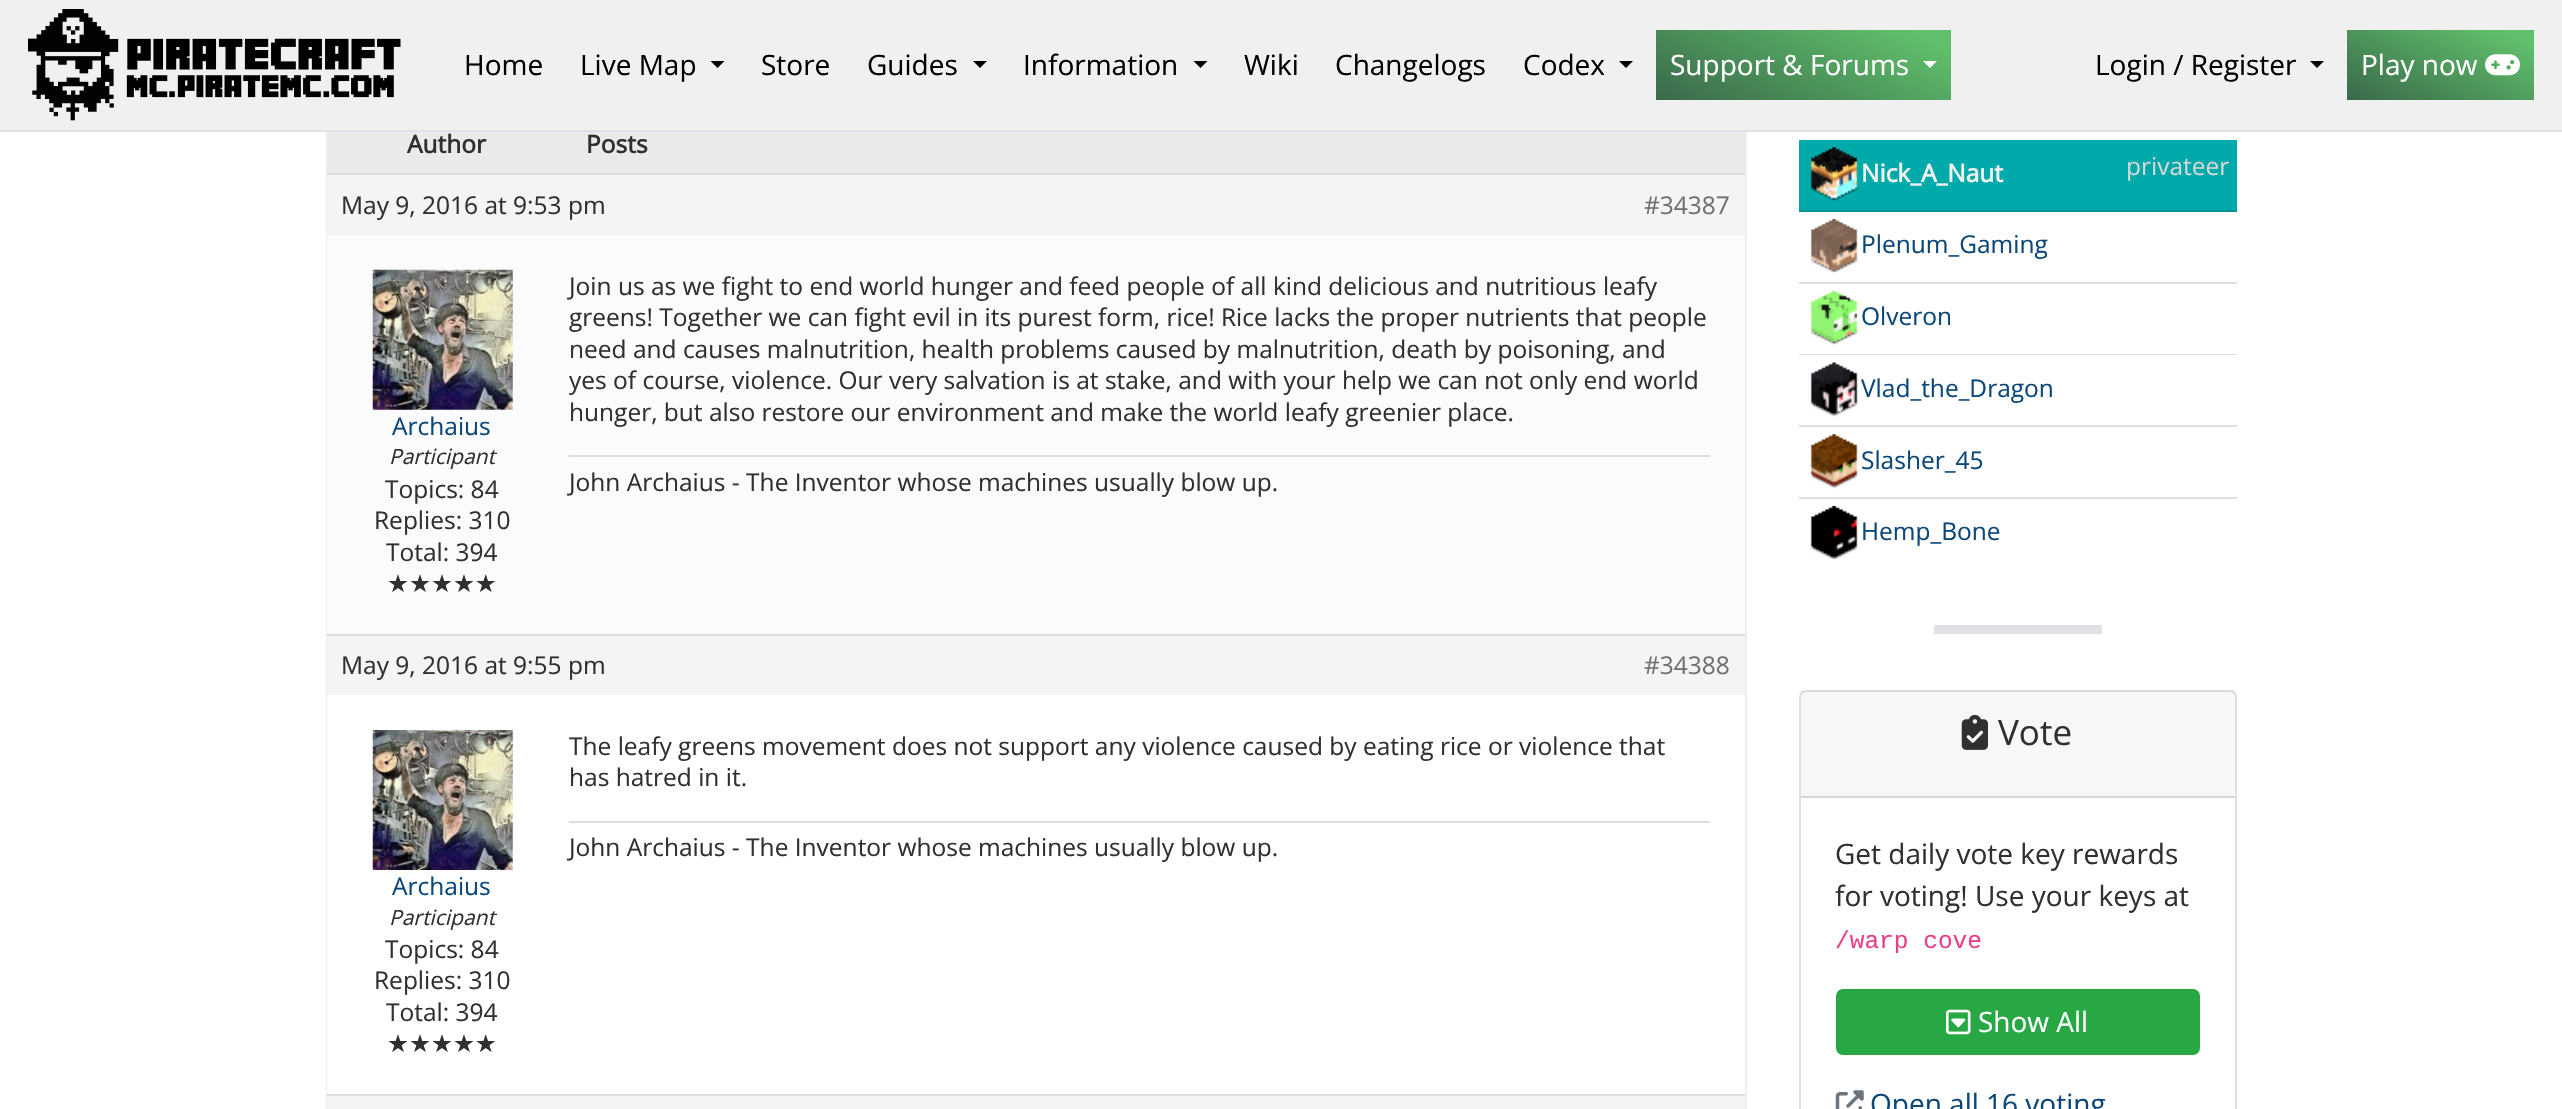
void draw(SkCanvas* canvas) {
	SkPaint fill;
	fill.setAntiAlias(true);
	auto makeFont = [&](const char* family, int weight, float size, bool italic = false) {
		SkFontStyle style(weight, SkFontStyle::kNormal_Width,
			italic ? SkFontStyle::kItalic_Slant : SkFontStyle::kUpright_Slant);
		SkFont result(fontMgr->matchFamilyStyle(family, style), size);
		result.setSubpixel(true);
		return result;
	};
	auto text = [&](const char* s, float x, float y, const SkFont& font) {
		canvas->drawString(s, x, y, font, fill);
	};
	auto box = [&](float l, float t, float r, float b) {
		canvas->drawRect(SkRect::MakeLTRB(l, t, r, b), fill);
	};
	auto picture = [&](const char* path, float l, float t, float r, float b) {
		auto image = SkImages::DeferredFromEncodedData(SkData::MakeFromFileName(path));
		canvas->drawImageRect(image, SkRect::MakeLTRB(l, t, r, b), SkSamplingOptions());
	};
	canvas->clear(0xFFFFFFFF);
	fill.setStyle(SkPaint::kStroke_Style);
	fill.setStrokeWidth(2);
	fill.setColor(0xFFEEEEEE);
	canvas->drawRect(SkRect::MakeLTRB(327, 111, 1746, 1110), fill);
	fill.setStyle(SkPaint::kFill_Style);
	fill.setColor(0xFFF0F0F0);
	box(0, 0, 2562, 130);
	fill.setColor(0xFFDEE2E6);
	box(0, 130, 2562, 132);
	picture("image0.png", 28, 9, 401, 121);
	fill.setColor(0xFF000000);
	canvas->drawPath(SkPathBuilder().moveTo(710.5f, 61).lineTo(724.5f, 61).lineTo(717.5f, 68).close().detach(), fill);
	canvas->drawPath(SkPathBuilder().moveTo(973, 61).lineTo(987, 61).lineTo(980, 68).close().detach(), fill);
	canvas->drawPath(SkPathBuilder().moveTo(1193.5f, 61).lineTo(1207.5f, 61).lineTo(1200.5f, 68).close().detach(), fill);
	canvas->drawPath(SkPathBuilder().moveTo(1619, 61).lineTo(1633, 61).lineTo(1626, 68).close().detach(), fill);
	{
		const SkColor colors[] = {0xFF3A694B, 0xFF60C06B};
		const float stops[] = {0, 0.9f};
		const SkPoint ends[] = {{1764, 150}, {1843, -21}};
		fill.setShader(SkGradientShader::MakeLinear(ends, colors, stops, 2, SkTileMode::kClamp));
		fill.setAlpha(255);
	}
	box(1656, 30, 1951, 100);
	fill.setShader(nullptr);
	fill.setColor(0xFFFFFFFF);
	canvas->drawPath(SkPathBuilder().moveTo(1923, 61).lineTo(1937, 61).lineTo(1930, 68).close().detach(), fill);
	fill.setColor(0xFF000000);
	canvas->drawPath(SkPathBuilder().moveTo(2310, 61).lineTo(2324, 61).lineTo(2317, 68).close().detach(), fill);
	{
		const SkColor colors[] = {0xFF3A694B, 0xFF60C06B};
		const float stops[] = {0, 0.9f};
		const SkPoint ends[] = {{2410, 129}, {2471, 0.1f}};
		fill.setShader(SkGradientShader::MakeLinear(ends, colors, stops, 2, SkTileMode::kClamp));
		fill.setAlpha(255);
	}
	box(2347, 30, 2534, 100);
	picture("image1.png", 2485, 54, 2520, 76);
	fill.setShader(nullptr);
	fill.setColor(0xFFEAEAEA);
	box(327, 132, 1745, 173);
	fill.setColor(0xFFF4F4F4);
	box(327, 175, 1745, 235);
	fill.setColor(0xFFDDDDDD);
	box(327, 173, 1745, 175);
	fill.setColor(0xFFFBFBFB);
	box(327, 235, 1745, 634);
	picture("image2.png", 372, 269, 513, 410);
	fill.setColor(0xFFDDDDDD);
	box(569, 455, 1710, 457);
	fill.setColor(0xFFF4F4F4);
	box(327, 636, 1745, 695);
	fill.setColor(0xFFDDDDDD);
	box(327, 634, 1745, 636);
	fill.setColor(0xFFFFFFFF);
	box(327, 695, 328, 1094);
	fill.setColor(0xFFDDDDDD);
	box(569, 821, 1710, 823);
	picture("image3.png", 372, 730, 513, 870);
	fill.setColor(0xFFF4F4F4);
	box(327, 1096, 1745, 1109);
	fill.setColor(0xFFDDDDDD);
	box(327, 1094, 1745, 1096);
	fill.setColor(0xFF00AAAA);
	box(1799, 140, 2237, 210);
	fill.setColor(0xFF009595);
	box(1799, 210, 2237, 212);
	picture("image4.png", 1810, 147, 1859, 201);
	fill.setColor(0xFFDFDFDF);
	box(1799, 282, 2237, 284);
	picture("image5.png", 1810, 219, 1859, 273);
	box(1799, 354, 2237, 355);
	picture("image6.png", 1810, 290, 1859, 345);
	box(1799, 425, 2237, 427);
	picture("image7.png", 1810, 362, 1859, 417);
	box(1799, 497, 2237, 499);
	picture("image8.png", 1810, 434, 1859, 489);
	picture("image9.png", 1810, 506, 1859, 560);
	fill.setColor(0xFFDFE1E5);
	box(1934, 625, 2102, 634);
	fill.setStyle(SkPaint::kStroke_Style);
	fill.setColor(0xFFDFDFDF);
	canvas->drawRoundRect(SkRect::MakeLTRB(1800, 691, 2236, 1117), 6, 6, fill);
	fill.setStyle(SkPaint::kFill_Style);
	fill.setColor(0x08000000);
	box(1801, 691, 2235, 796);
	fill.setColor(0xFFD8D8D8);
	box(1801, 796, 2235, 798);
	picture("image10.png", 1961, 714, 1988, 750);
	fill.setColor(0xFF28A745);
	canvas->drawRoundRect(SkRect::MakeLTRB(1837, 990, 2199, 1054), 6, 6, fill);
	fill.setStyle(SkPaint::kStroke_Style);
	canvas->drawRoundRect(SkRect::MakeLTRB(1837, 990, 2199, 1054), 6, 6, fill);
	picture("image11.png", 1946, 1009, 1971, 1035);
	picture("image12.png", 1835, 1090, 1864, 1109);
	auto font1 = makeFont("Open Sans", 400, 28);
	fill.setStyle(SkPaint::kFill_Style);
	fill.setColor(0xFF000000);
	text("Home", 464, 75, font1);
	text("Live Map", 580, 75, font1);
	text("Store", 761, 75, font1);
	text("Guides", 867, 75, font1);
	text("Information", 1023, 75, font1);
	text("Wiki", 1244, 75, font1);
	text("Changelogs", 1335, 75, font1);
	text("Codex", 1523, 75, font1);
	fill.setColor(0xFFFFFFFF);
	text("Support & Forums", 1670, 75, font1);
	fill.setColor(0xFF000000);
	text("Login / Register", 2095, 75, font1);
	fill.setColor(0xFFFFFFFF);
	text("Play now", 2361, 75, font1);
	auto font2 = makeFont("Open Sans", 700, 24.5f);
	fill.setColor(0xFF303030);
	text("Author", 407, 153, font2);
	text("Posts", 586, 153, font2);
	auto font3 = makeFont("Open Sans", 400, 24.5f);
	text("May 9, 2016 at 9:53 pm", 341, 214, font3);
	fill.setColor(0xFF707070);
	text("#34387", 1644, 214, font3);
	fill.setColor(0xFF0B4779);
	text("Archaius", 392, 435, font3);
	auto font4 = makeFont("Open Sans", 400, 21, true);
	fill.setColor(0xFF303030);
	text("Participant", 389, 464, font4);
	text("Topics: 84", 385, 498, font3);
	text("Replies: 310", 374, 529, font3);
	text("Total: 394", 386, 561, font3);
	auto font5 = makeFont("DejaVu Sans", 400, 24.5f);
	text("★★★★★", 387, 592, font5);
	text("Join us as we fight to end world hunger and feed people of all kind delicious and nutritious leafy", 569, 295, font3);
	text("greens! Together we can fight evil in its purest form, rice! Rice lacks the proper nutrients that people", 569, 326, font3);
	text("need and causes malnutrition, health problems caused by malnutrition, death by poisoning, and", 569, 358, font3);
	text("yes of course, violence. Our very salvation is at stake, and with your help we can not only end world", 569, 389, font3);
	text("hunger, but also restore our environment and make the world leafy greenier place.", 569, 421, font3);
	text("John Archaius - The Inventor whose machines usually blow up.", 569, 491, font3);
	text("May 9, 2016 at 9:55 pm", 341, 674, font3);
	fill.setColor(0xFF707070);
	text("#34388", 1644, 674, font3);
	fill.setColor(0xFF303030);
	text("The leafy greens movement does not support any violence caused by eating rice or violence that", 569, 755, font3);
	text("has hatred in it.", 569, 786, font3);
	text("John Archaius - The Inventor whose machines usually blow up.", 569, 856, font3);
	fill.setColor(0xFF0B4779);
	text("Archaius", 392, 895, font3);
	fill.setColor(0xFF303030);
	text("Participant", 389, 925, font4);
	text("Topics: 84", 385, 958, font3);
	text("Replies: 310", 374, 989, font3);
	text("Total: 394", 386, 1021, font3);
	text("★★★★★", 387, 1052, font5);
	fill.setColor(0xFFF0F0F0);
	text("Nick_A_Naut", 1861, 182, font2);
	fill.setColor(0xFFD6D6D6);
	text("privateer", 2126, 175, font3);
	fill.setColor(0xFF0B4779);
	text("Plenum_Gaming", 1861, 253, font3);
	text("Olveron", 1861, 325, font3);
	text("Vlad_the_Dragon", 1861, 397, font3);
	text("Slasher_45", 1861, 469, font3);
	text("Hemp_Bone", 1861, 540, font3);
	auto font6 = makeFont("Open Sans", 400, 35);
	fill.setColor(0xFF303030);
	text("Vote", 1998, 745, font6);
	text("Get daily vote key rewards", 1835, 864, font1);
	text("for voting! Use your keys at", 1835, 906, font1);
	auto font7 = makeFont("Liberation Mono", 400, 24.5f);
	fill.setColor(0xFFE83E8C);
	text("/warp cove", 1835, 948, font7);
	fill.setColor(0xFFFFFFFF);
	text("Show All", 1978, 1032, font1);
	fill.setColor(0xFF0B4779);
	text("Open all 16 voting", 1870, 1114, font1);
}
